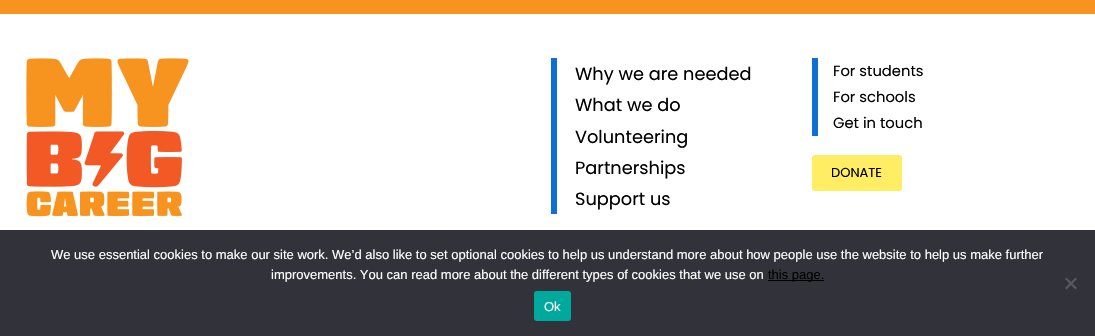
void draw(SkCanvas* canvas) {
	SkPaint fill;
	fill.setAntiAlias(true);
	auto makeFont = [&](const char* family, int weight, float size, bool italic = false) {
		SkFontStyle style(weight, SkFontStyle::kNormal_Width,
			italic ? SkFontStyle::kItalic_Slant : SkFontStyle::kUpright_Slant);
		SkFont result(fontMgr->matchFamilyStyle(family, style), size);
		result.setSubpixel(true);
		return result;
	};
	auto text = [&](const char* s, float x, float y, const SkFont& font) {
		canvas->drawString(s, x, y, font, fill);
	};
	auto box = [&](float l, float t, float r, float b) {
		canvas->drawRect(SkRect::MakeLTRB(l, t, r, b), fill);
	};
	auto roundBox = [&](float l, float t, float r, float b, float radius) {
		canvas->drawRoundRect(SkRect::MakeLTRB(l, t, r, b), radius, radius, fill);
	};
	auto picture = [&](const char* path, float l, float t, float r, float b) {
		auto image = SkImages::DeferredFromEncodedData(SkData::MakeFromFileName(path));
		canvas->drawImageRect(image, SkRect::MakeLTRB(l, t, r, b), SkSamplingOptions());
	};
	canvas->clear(0xFFFFFFFF);
	fill.setColor(0xFFF7941F);
	box(0, 0, 1095, 14);
	picture("image0.png", 26, 58, 189, 217);
	fill.setColor(0xFF0E70D4);
	box(551, 58, 557, 214);
	box(812, 58, 818, 136);
	fill.setColor(0xFFFFED63);
	roundBox(812, 155, 902, 191, 3);
	fill.setColor(0xFF32323A);
	box(0, 230, 1095, 336);
	fill.setColor(0xFF000000);
	box(768, 280, 824, 281);
	fill.setColor(0xFF59595D);
	canvas->drawPath(SkPathBuilder().moveTo(1075.5f, 277.5f).lineTo(1077, 279).lineTo(1066.5f, 289.5f).lineTo(1065, 288).close().detach(), fill);
	canvas->drawPath(SkPathBuilder().moveTo(1065, 279).lineTo(1066.5f, 277.5f).lineTo(1077, 288).lineTo(1075.5f, 289.5f).close().detach(), fill);
	fill.setColor(0xFF00A99D);
	roundBox(534, 291, 571, 321, 3);
	auto font1 = makeFont("Poppins", 400, 17.75f);
	fill.setColor(0xFF000000);
	text("Why we are needed", 575, 80, font1);
	text("What we do", 575, 111, font1);
	text("Volunteering", 575, 143, font1);
	text("Partnerships", 575, 174, font1);
	text("Support us", 575, 205, font1);
	auto font2 = makeFont("Poppins", 400, 14.75f);
	text("For students", 833, 76, font2);
	text("For schools", 833, 102, font2);
	text("Get in touch", 833, 128, font2);
	auto font3 = makeFont("Poppins", 400, 13);
	text("DONATE", 831, 177, font3);
	auto font4 = makeFont("Liberation Sans", 400, 13);
	fill.setColor(0xFFFFFFFF);
	text("We use essential cookies to make our site work. We’d also like to set optional cookies to help us understand more about how people use the website to help us make further", 51, 259, font4);
	text("improvements. You can read more about the different types of cookies that we use on", 271, 279, font4);
	fill.setColor(0xFF000000);
	text("this page.", 768, 279, font4);
	fill.setColor(0xFFFFFFFF);
	text("Ok", 544, 311, font4);
}
